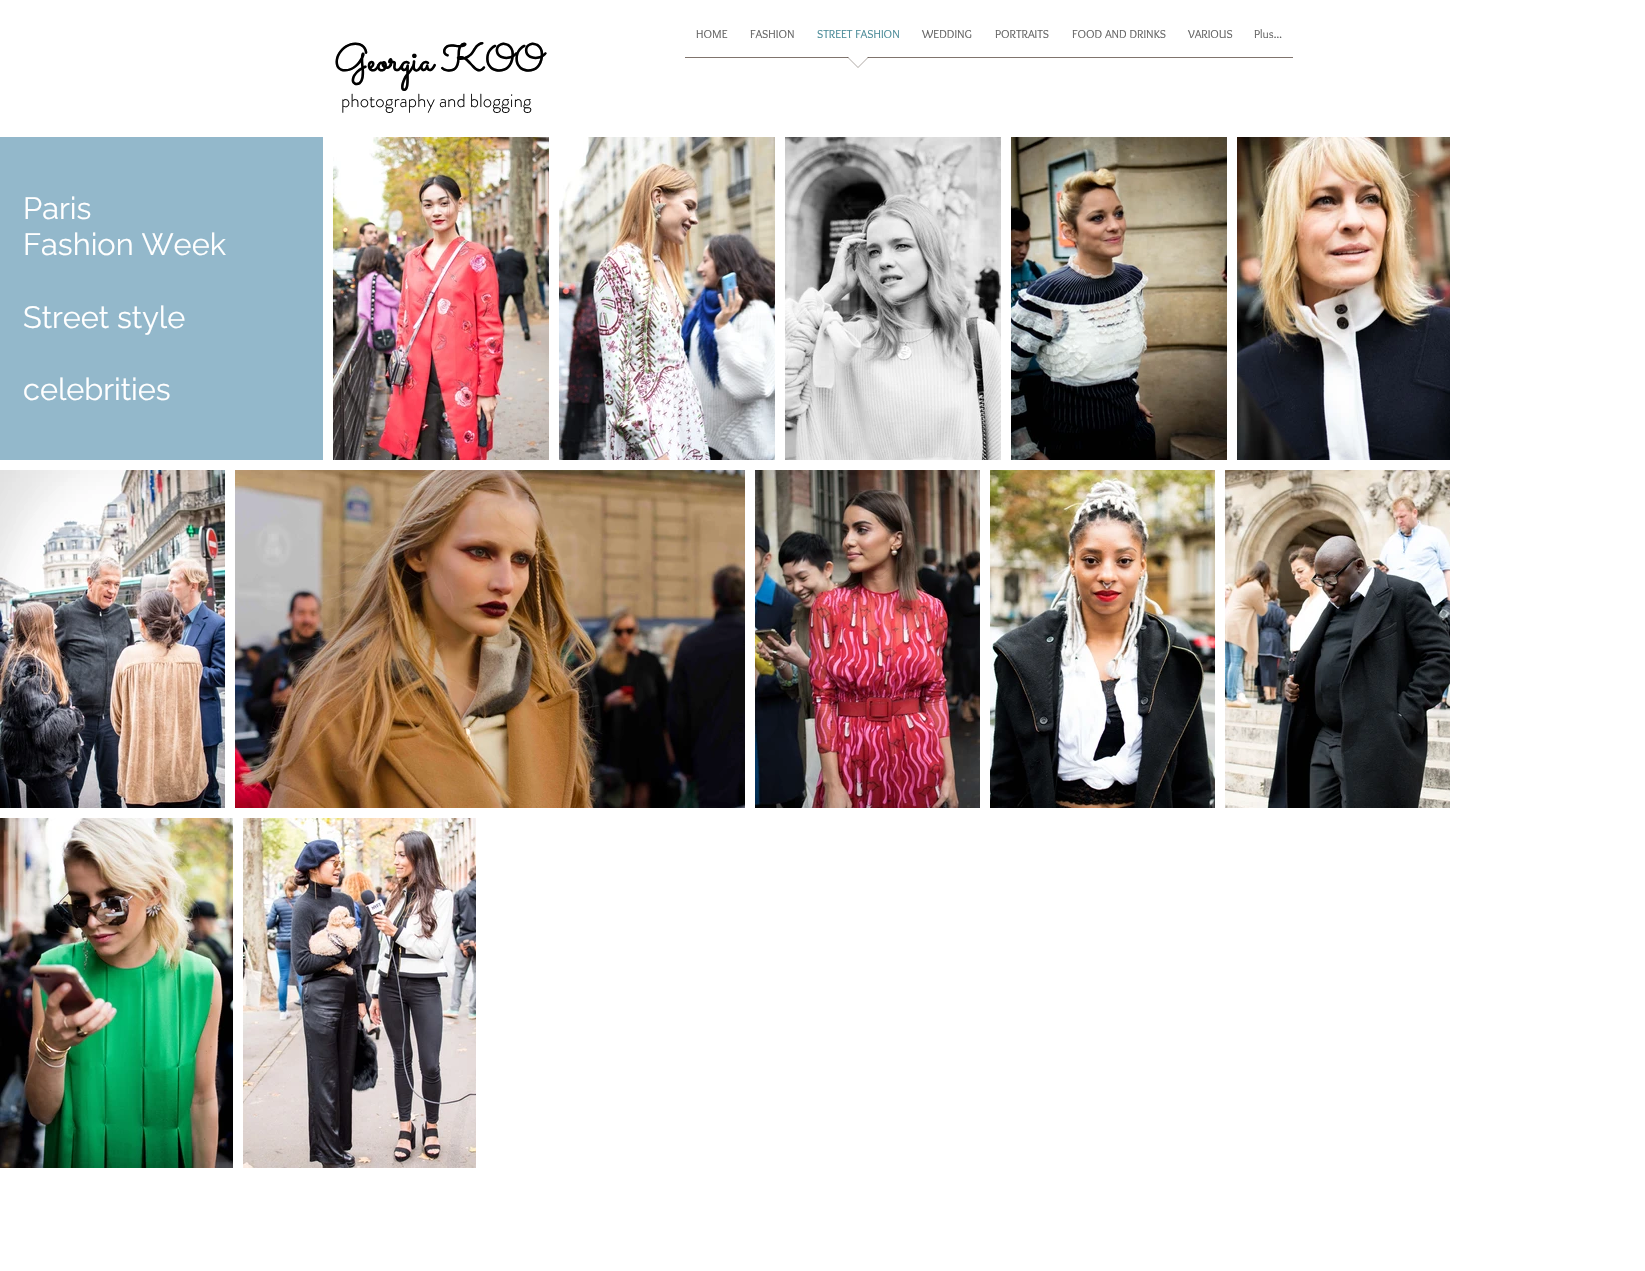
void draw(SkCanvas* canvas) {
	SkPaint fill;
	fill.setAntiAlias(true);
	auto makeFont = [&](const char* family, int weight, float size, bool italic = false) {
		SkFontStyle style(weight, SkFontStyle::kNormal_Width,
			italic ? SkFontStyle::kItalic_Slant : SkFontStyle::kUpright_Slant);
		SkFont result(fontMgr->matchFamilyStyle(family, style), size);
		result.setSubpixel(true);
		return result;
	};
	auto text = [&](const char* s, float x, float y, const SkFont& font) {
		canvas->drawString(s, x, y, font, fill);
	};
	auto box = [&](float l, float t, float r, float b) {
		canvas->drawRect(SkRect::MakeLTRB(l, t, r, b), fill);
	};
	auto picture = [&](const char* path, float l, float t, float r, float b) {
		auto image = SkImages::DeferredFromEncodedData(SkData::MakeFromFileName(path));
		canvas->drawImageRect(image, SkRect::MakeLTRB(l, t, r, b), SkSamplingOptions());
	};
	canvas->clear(0xFFFFFFFF);
	fill.setColor(0xFF80746D);
	box(685, 57, 1293, 58);
	fill.setColor(0x63342216);
	canvas->drawPath(SkPathBuilder().moveTo(847, 57).lineTo(869, 57).lineTo(858, 68).close().detach(), fill);
	fill.setColor(0xFFFFFFFF);
	canvas->drawPath(SkPathBuilder().moveTo(848, 57).lineTo(868, 57).lineTo(858, 67).close().detach(), fill);
	fill.setColor(0xFF93B8CB);
	box(0, 137, 323, 460);
	picture("image0.png", 333, 137, 549, 460);
	picture("image1.png", 559, 137, 775, 460);
	picture("image2.png", 785, 137, 1001, 460);
	picture("image3.png", 1011, 137, 1227, 460);
	picture("image4.png", 1237, 137, 1450, 460);
	picture("image5.png", 0, 470, 225, 808);
	picture("image6.png", 235, 470, 745, 808);
	picture("image7.png", 755, 470, 980, 808);
	picture("image8.png", 990, 470, 1215, 808);
	picture("image9.png", 1225, 470, 1450, 808);
	picture("image10.png", 0, 818, 233, 1168);
	picture("image11.png", 243, 818, 476, 1168);
	auto font1 = makeFont("Overlock", 400, 12);
	fill.setColor(0xFF656565);
	text("HOME", 696, 38, font1);
	text("FASHION", 750, 38, font1);
	fill.setColor(0xFF4C8C99);
	text("STREET FASHION", 817, 38, font1);
	fill.setColor(0xFF656565);
	text("WEDDING", 922, 38, font1);
	text("PORTRAITS", 995, 38, font1);
	text("FOOD AND DRINKS", 1072, 38, font1);
	text("VARIOUS", 1188, 38, font1);
	text("Plus...", 1254, 38, font1);
	auto font2 = makeFont("Sacramento", 700, 38);
	fill.setColor(0xFF000000);
	text("Georgia KOO", 334, 71, font2);
	auto font3 = makeFont("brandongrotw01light", 300, 19);
	text("photography and blogging", 341, 107, font3);
	auto font4 = makeFont("Raleway", 100, 30.75f);
	fill.setColor(0xFFFFFFFF);
	text("Paris", 23, 219, font4);
	text("Fashion Week", 23, 255, font4);
	text("Street style", 23, 328, font4);
	text("celebrities", 23, 400, font4);
}
